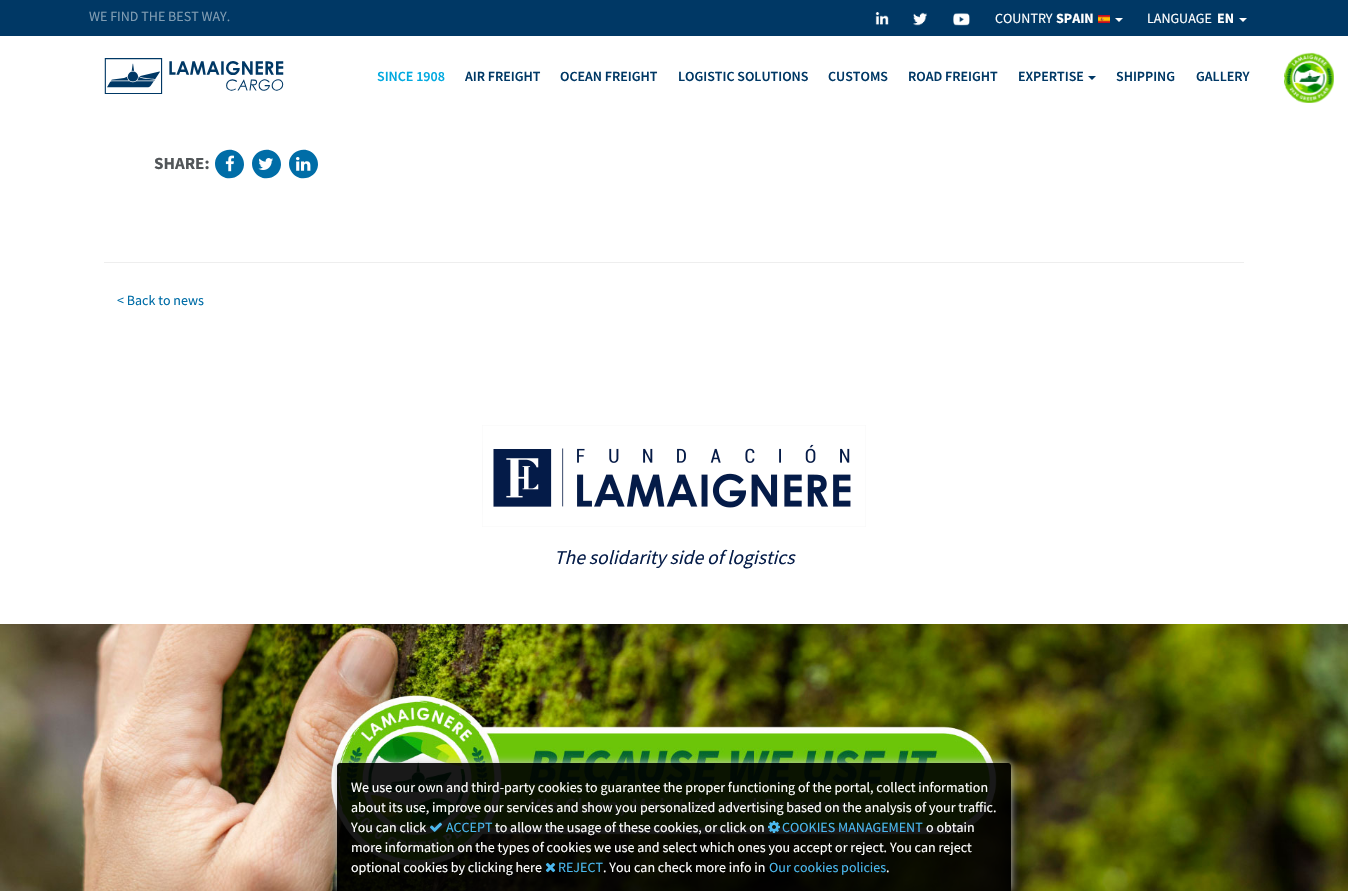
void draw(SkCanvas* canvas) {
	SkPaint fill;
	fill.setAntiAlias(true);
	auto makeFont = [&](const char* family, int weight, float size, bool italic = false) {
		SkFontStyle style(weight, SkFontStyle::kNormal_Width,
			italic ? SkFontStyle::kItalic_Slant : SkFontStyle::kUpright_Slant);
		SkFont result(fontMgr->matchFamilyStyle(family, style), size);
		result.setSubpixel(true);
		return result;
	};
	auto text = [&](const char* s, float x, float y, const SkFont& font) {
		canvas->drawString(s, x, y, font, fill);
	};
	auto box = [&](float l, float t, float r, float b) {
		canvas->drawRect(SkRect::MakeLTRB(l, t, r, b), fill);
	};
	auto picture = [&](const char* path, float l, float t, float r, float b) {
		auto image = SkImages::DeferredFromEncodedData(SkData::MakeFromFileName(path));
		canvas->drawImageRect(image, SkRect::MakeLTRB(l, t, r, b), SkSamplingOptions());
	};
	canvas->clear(0xFFFFFFFF);
	fill.setColor(0xFF003865);
	box(0, 0, 1348, 36);
	picture("image0.png", 875, 12, 889, 25);
	picture("image1.png", 913, 12, 927, 26);
	picture("image2.png", 953, 13, 970, 26);
	picture("image3.png", 1098, 15, 1110, 23);
	fill.setColor(0xFFFFFFFF);
	canvas->drawPath(SkPathBuilder().moveTo(1115, 18).lineTo(1123, 18).lineTo(1119, 22).close().detach(), fill);
	canvas->drawPath(SkPathBuilder().moveTo(1239, 18).lineTo(1247, 18).lineTo(1243, 22).close().detach(), fill);
	picture("image4.png", 104, 58, 284, 94);
	fill.setColor(0xFF003865);
	canvas->drawPath(SkPathBuilder().moveTo(1088, 76).lineTo(1096, 76).lineTo(1092, 80).close().detach(), fill);
	picture("image5.png", 1284, 52, 1334, 103);
	fill.setColor(0xFF006DA7);
	canvas->drawPath(SkPathBuilder().moveTo(242, 157).cubicTo(243.5f, 159.5f, 244, 162, 244, 165).cubicTo(243, 179, 224, 183.5f, 217, 171).cubicTo(215.5f, 168.5f, 215, 166, 215, 163).cubicTo(216, 149, 235, 144.5f, 242, 157).close().detach(), fill);
	picture("image6.png", 225, 155, 234, 172);
	canvas->drawPath(SkPathBuilder().moveTo(279, 157).cubicTo(280.5f, 159.5f, 281, 162, 281, 165).cubicTo(280, 179, 261, 183.5f, 254, 171).cubicTo(252.5f, 168.5f, 252, 166, 252, 163).cubicTo(253, 149, 272, 144.5f, 279, 157).close().detach(), fill);
	picture("image7.png", 258, 158, 273, 170);
	canvas->drawPath(SkPathBuilder().moveTo(316, 157).cubicTo(317.5f, 159.5f, 318, 162, 318, 165).cubicTo(317, 179, 298, 183.5f, 291, 171).cubicTo(289.5f, 168.5f, 289, 166, 289, 163).cubicTo(290, 149, 309, 144.5f, 316, 157).close().detach(), fill);
	picture("image8.png", 296, 157, 311, 171);
	fill.setColor(0xFFEEEEEE);
	box(104, 262, 1244, 263);
	picture("image9.png", 482, 425, 866, 527);
	picture("image10.png", 0, 624, 1348, 891);
	canvas->save();
	canvas->clipPath(SkPathBuilder(SkPathFillType::kEvenOdd).moveTo(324, 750).lineTo(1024, 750).lineTo(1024, 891).lineTo(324, 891).close().moveTo(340, 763).lineTo(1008, 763).cubicTo(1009.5f, 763, 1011, 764.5f, 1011, 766).lineTo(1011, 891).lineTo(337, 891).lineTo(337, 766).cubicTo(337, 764.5f, 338.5f, 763, 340, 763).close().detach(), true);
	fill.setColor(0xFFCCCCCC);
	fill.setMaskFilter(SkMaskFilter::MakeBlur(kNormal_SkBlurStyle, 4));
	canvas->drawRoundRect(SkRect::MakeLTRB(337, 763, 1011, 891), 3, 3, fill);
	fill.setMaskFilter(nullptr);
	canvas->restore();
	fill.setColor(0xE6000000);
	canvas->drawPath(SkPathBuilder().moveTo(340, 763).lineTo(1008, 763).cubicTo(1009.5f, 763, 1011, 764.5f, 1011, 766).lineTo(1011, 891).lineTo(337, 891).lineTo(337, 766).cubicTo(337, 764.5f, 338.5f, 763, 340, 763).close().detach(), fill);
	picture("image11.png", 430, 822, 442, 832);
	picture("image12.png", 768, 821, 780, 833);
	picture("image13.png", 545, 862, 556, 873);
	auto font1 = makeFont("Source Sans Pro", 400, 14);
	fill.setColor(0xFF809CB2);
	text("WE FIND THE BEST WAY.", 89, 21, font1);
	fill.setColor(0xFFFFFFFF);
	text("COUNTRY", 995, 23, font1);
	auto font2 = makeFont("Source Sans Pro", 700, 14);
	text("SPAIN", 1056, 23, font2);
	text("LANGUAGE", 1147, 23, font1);
	text("EN", 1217, 23, font2);
	auto font3 = makeFont("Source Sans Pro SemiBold", 600, 14);
	fill.setColor(0xFF00A9E0);
	text("SINCE 1908", 377, 81, font3);
	fill.setColor(0xFF003865);
	text("AIR FREIGHT", 465, 81, font3);
	text("OCEAN FREIGHT", 560, 81, font3);
	text("LOGISTIC SOLUTIONS", 678, 81, font3);
	text("CUSTOMS", 828, 81, font3);
	text("ROAD FREIGHT", 908, 81, font3);
	text("EXPERTISE", 1018, 81, font3);
	text("SHIPPING", 1116, 81, font3);
	text("GALLERY", 1196, 81, font3);
	auto font4 = makeFont("Source Sans Pro", 700, 17);
	fill.setColor(0xFF525659);
	text("SHARE:", 154, 169, font4);
	fill.setColor(0xFF006DA7);
	text("< Back to news", 117, 305, font1);
	auto font5 = makeFont("Source Sans Pro", 400, 19.6f, true);
	fill.setColor(0xFF061D49);
	text("The solidarity side of logistics", 554, 564, font5);
	fill.setColor(0xFFFFFFFF);
	text("We use our own and third-party cookies to guarantee the proper functioning of the portal, collect information", 351, 792, font1);
	text("about its use, improve our services and show you personalized advertising based on the analysis of your traffic.", 351, 812, font1);
	text("You can click", 351, 832, font1);
	fill.setColor(0xFF4BB8EE);
	text("ACCEPT", 446, 832, font1);
	fill.setColor(0xFFFFFFFF);
	text("to allow the usage of these cookies, or click on", 495, 832, font1);
	fill.setColor(0xFF4BB8EE);
	text("COOKIES MANAGEMENT", 782, 832, font1);
	fill.setColor(0xFFFFFFFF);
	text("o obtain", 926, 832, font1);
	text("more information on the types of cookies we use and select which ones you accept or reject. You can reject", 351, 852, font1);
	text("optional cookies by clicking here", 351, 872, font1);
	fill.setColor(0xFF4BB8EE);
	text("REJECT", 558, 872, font1);
	fill.setColor(0xFFFFFFFF);
	text(". You can check more info in", 603, 872, font1);
	fill.setColor(0xFF4BB8EE);
	text("Our cookies policies", 769, 872, font1);
	fill.setColor(0xFFFFFFFF);
	text(".", 886, 872, font1);
}
